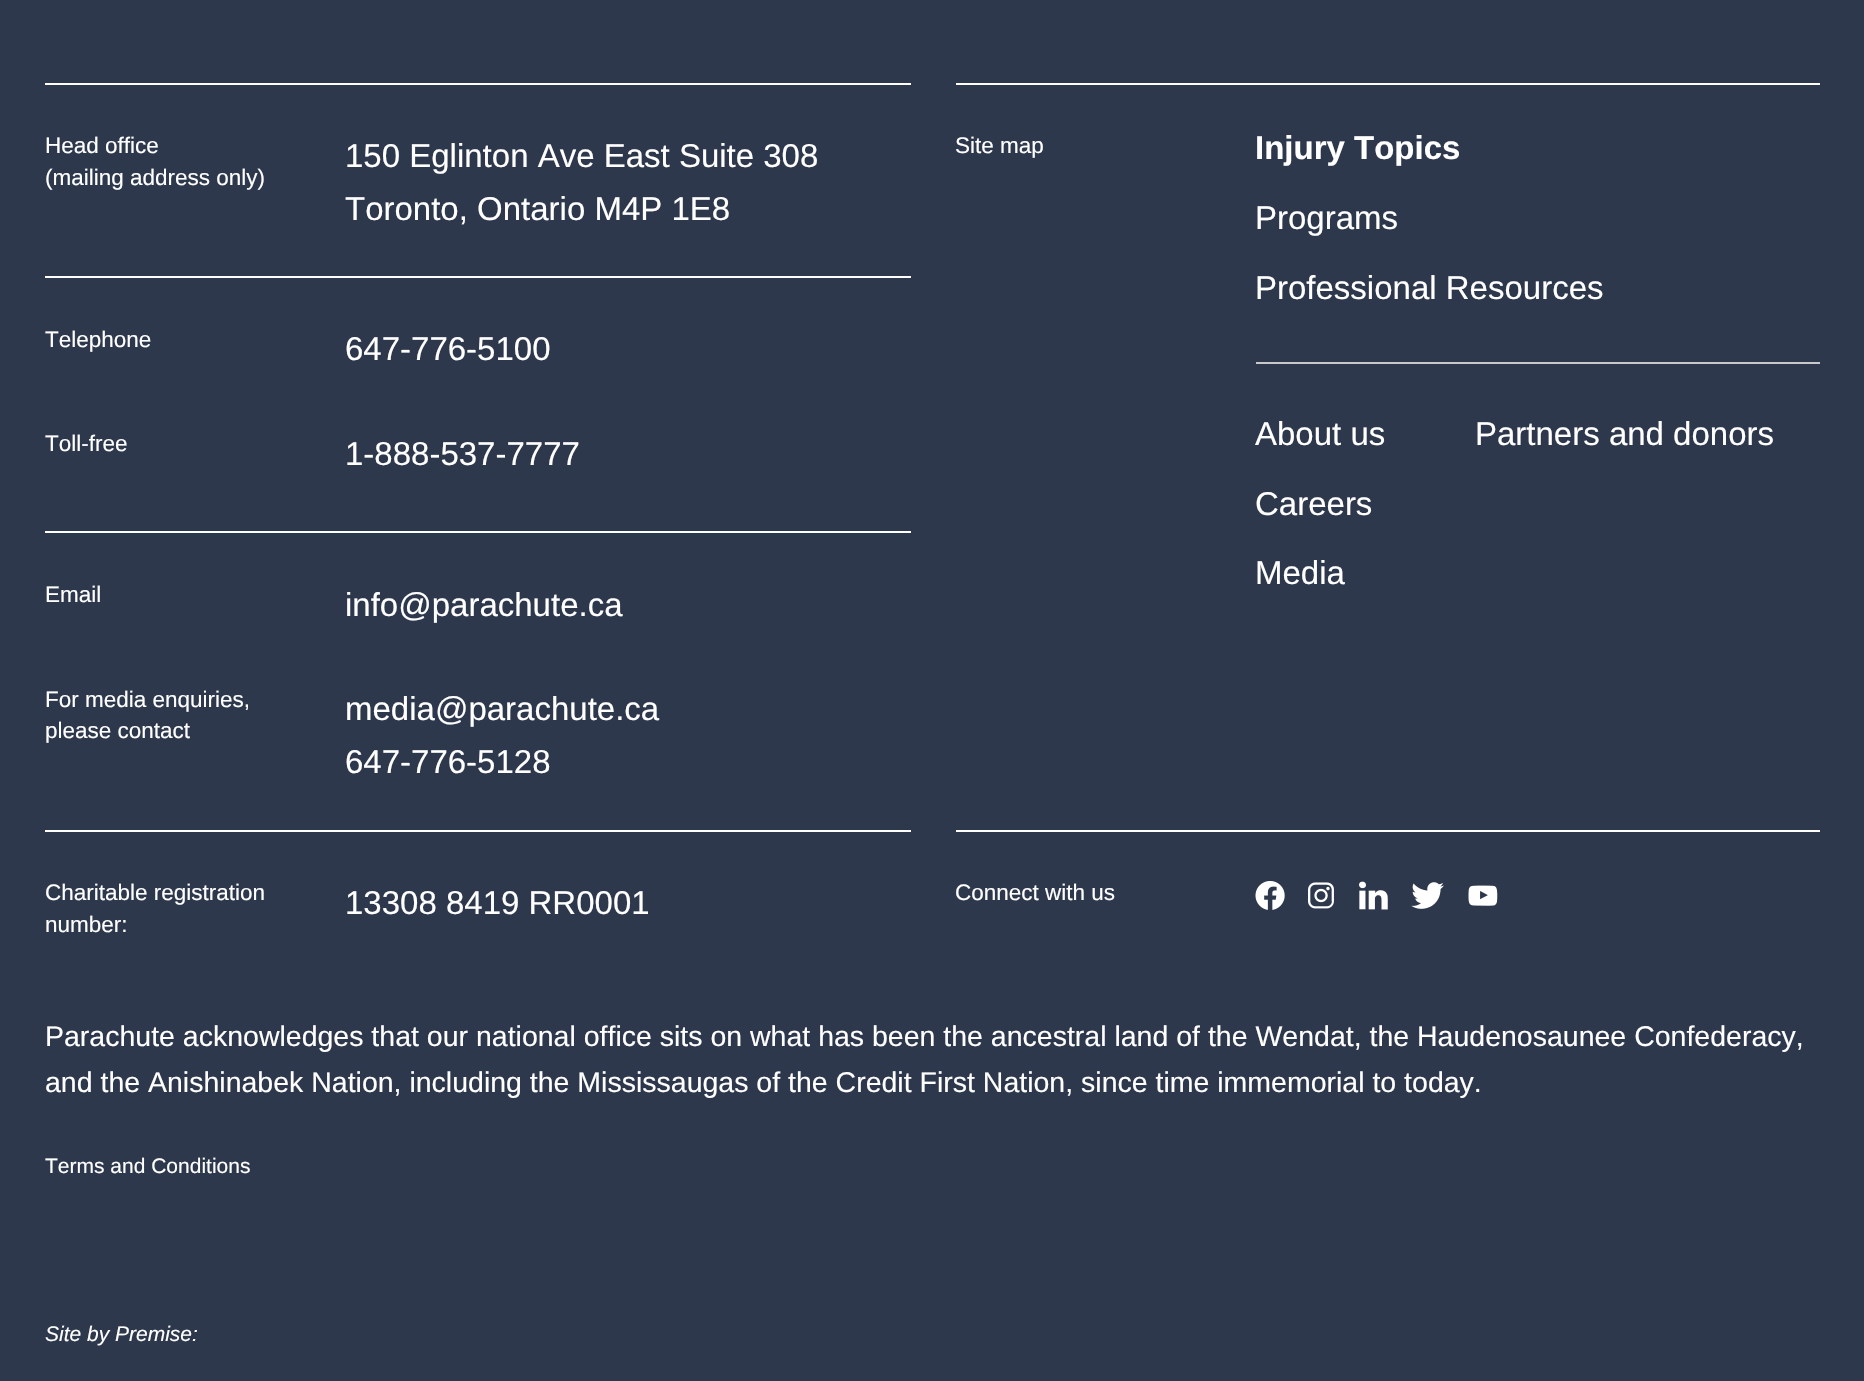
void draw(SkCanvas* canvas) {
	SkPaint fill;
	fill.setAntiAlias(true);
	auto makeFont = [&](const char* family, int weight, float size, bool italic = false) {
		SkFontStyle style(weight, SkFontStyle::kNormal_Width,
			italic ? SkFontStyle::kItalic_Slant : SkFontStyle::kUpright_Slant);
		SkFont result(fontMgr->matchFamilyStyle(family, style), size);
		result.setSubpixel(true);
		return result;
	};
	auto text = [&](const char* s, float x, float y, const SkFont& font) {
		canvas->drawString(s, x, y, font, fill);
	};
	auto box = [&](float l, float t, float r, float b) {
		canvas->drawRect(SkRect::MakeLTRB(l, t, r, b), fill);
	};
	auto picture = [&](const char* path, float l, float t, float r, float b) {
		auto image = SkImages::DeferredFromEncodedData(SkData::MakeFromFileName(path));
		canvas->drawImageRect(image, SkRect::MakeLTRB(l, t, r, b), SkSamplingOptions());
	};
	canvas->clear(0xFF2E384D);
	fill.setColor(0xFFFFFFFF);
	box(45, 83, 911, 85);
	box(45, 276, 911, 278);
	box(45, 531, 911, 533);
	box(45, 830, 911, 832);
	box(956, 83, 1820, 85);
	fill.setColor(0xFFC9C9C9);
	box(1256, 362, 1820, 364);
	fill.setColor(0xFFFFFFFF);
	box(956, 830, 1820, 832);
	picture("image0.png", 1255, 881, 1285, 910);
	picture("image1.png", 1308, 882, 1334, 909);
	picture("image2.png", 1359, 881, 1388, 910);
	picture("image3.png", 1411, 882, 1444, 909);
	picture("image4.png", 1468, 885, 1498, 906);
	auto font1 = makeFont("Liberation Sans", 400, 22.5f);
	text("Head office", 45, 153, font1);
	text("(mailing address only)", 45, 185, font1);
	auto font2 = makeFont("Liberation Sans", 400, 33);
	text("150 Eglinton Ave East Suite 308", 345, 167, font2);
	text("Toronto, Ontario M4P 1E8", 345, 220, font2);
	text("Telephone", 45, 347, font1);
	text("647-776-5100", 345, 360, font2);
	text("Toll-free", 45, 451, font1);
	text("1-888-537-7777", 345, 465, font2);
	text("Email", 45, 602, font1);
	text("info@parachute.ca", 345, 616, font2);
	text("For media enquiries,", 45, 707, font1);
	text("please contact", 45, 738, font1);
	text("media@parachute.ca", 345, 720, font2);
	text("647-776-5128", 345, 773, font2);
	text("Charitable registration", 45, 900, font1);
	text("number:", 45, 932, font1);
	text("13308 8419 RR0001", 345, 914, font2);
	text("Site map", 955, 153, font1);
	auto font3 = makeFont("Liberation Sans", 700, 33);
	text("Injury Topics", 1255, 159, font3);
	text("Programs", 1255, 229, font2);
	text("Professional Resources", 1255, 299, font2);
	text("About us", 1255, 445, font2);
	text("Careers", 1255, 515, font2);
	text("Media", 1255, 584, font2);
	text("Partners and donors", 1475, 445, font2);
	text("Connect with us", 955, 900, font1);
	auto font4 = makeFont("Liberation Sans", 400, 28.5f);
	text("Parachute acknowledges that our national office sits on what has been the ancestral land of the Wendat, the Haudenosaunee Confederacy,", 45, 1046, font4);
	text("and the Anishinabek Nation, including the Mississaugas of the Credit First Nation, since time immemorial to today.", 45, 1092, font4);
	auto font5 = makeFont("Liberation Sans", 400, 21);
	text("Terms and Conditions", 45, 1173, font5);
	auto font6 = makeFont("Liberation Sans", 400, 21, true);
	text("Site by Premise:", 45, 1341, font6);
}
